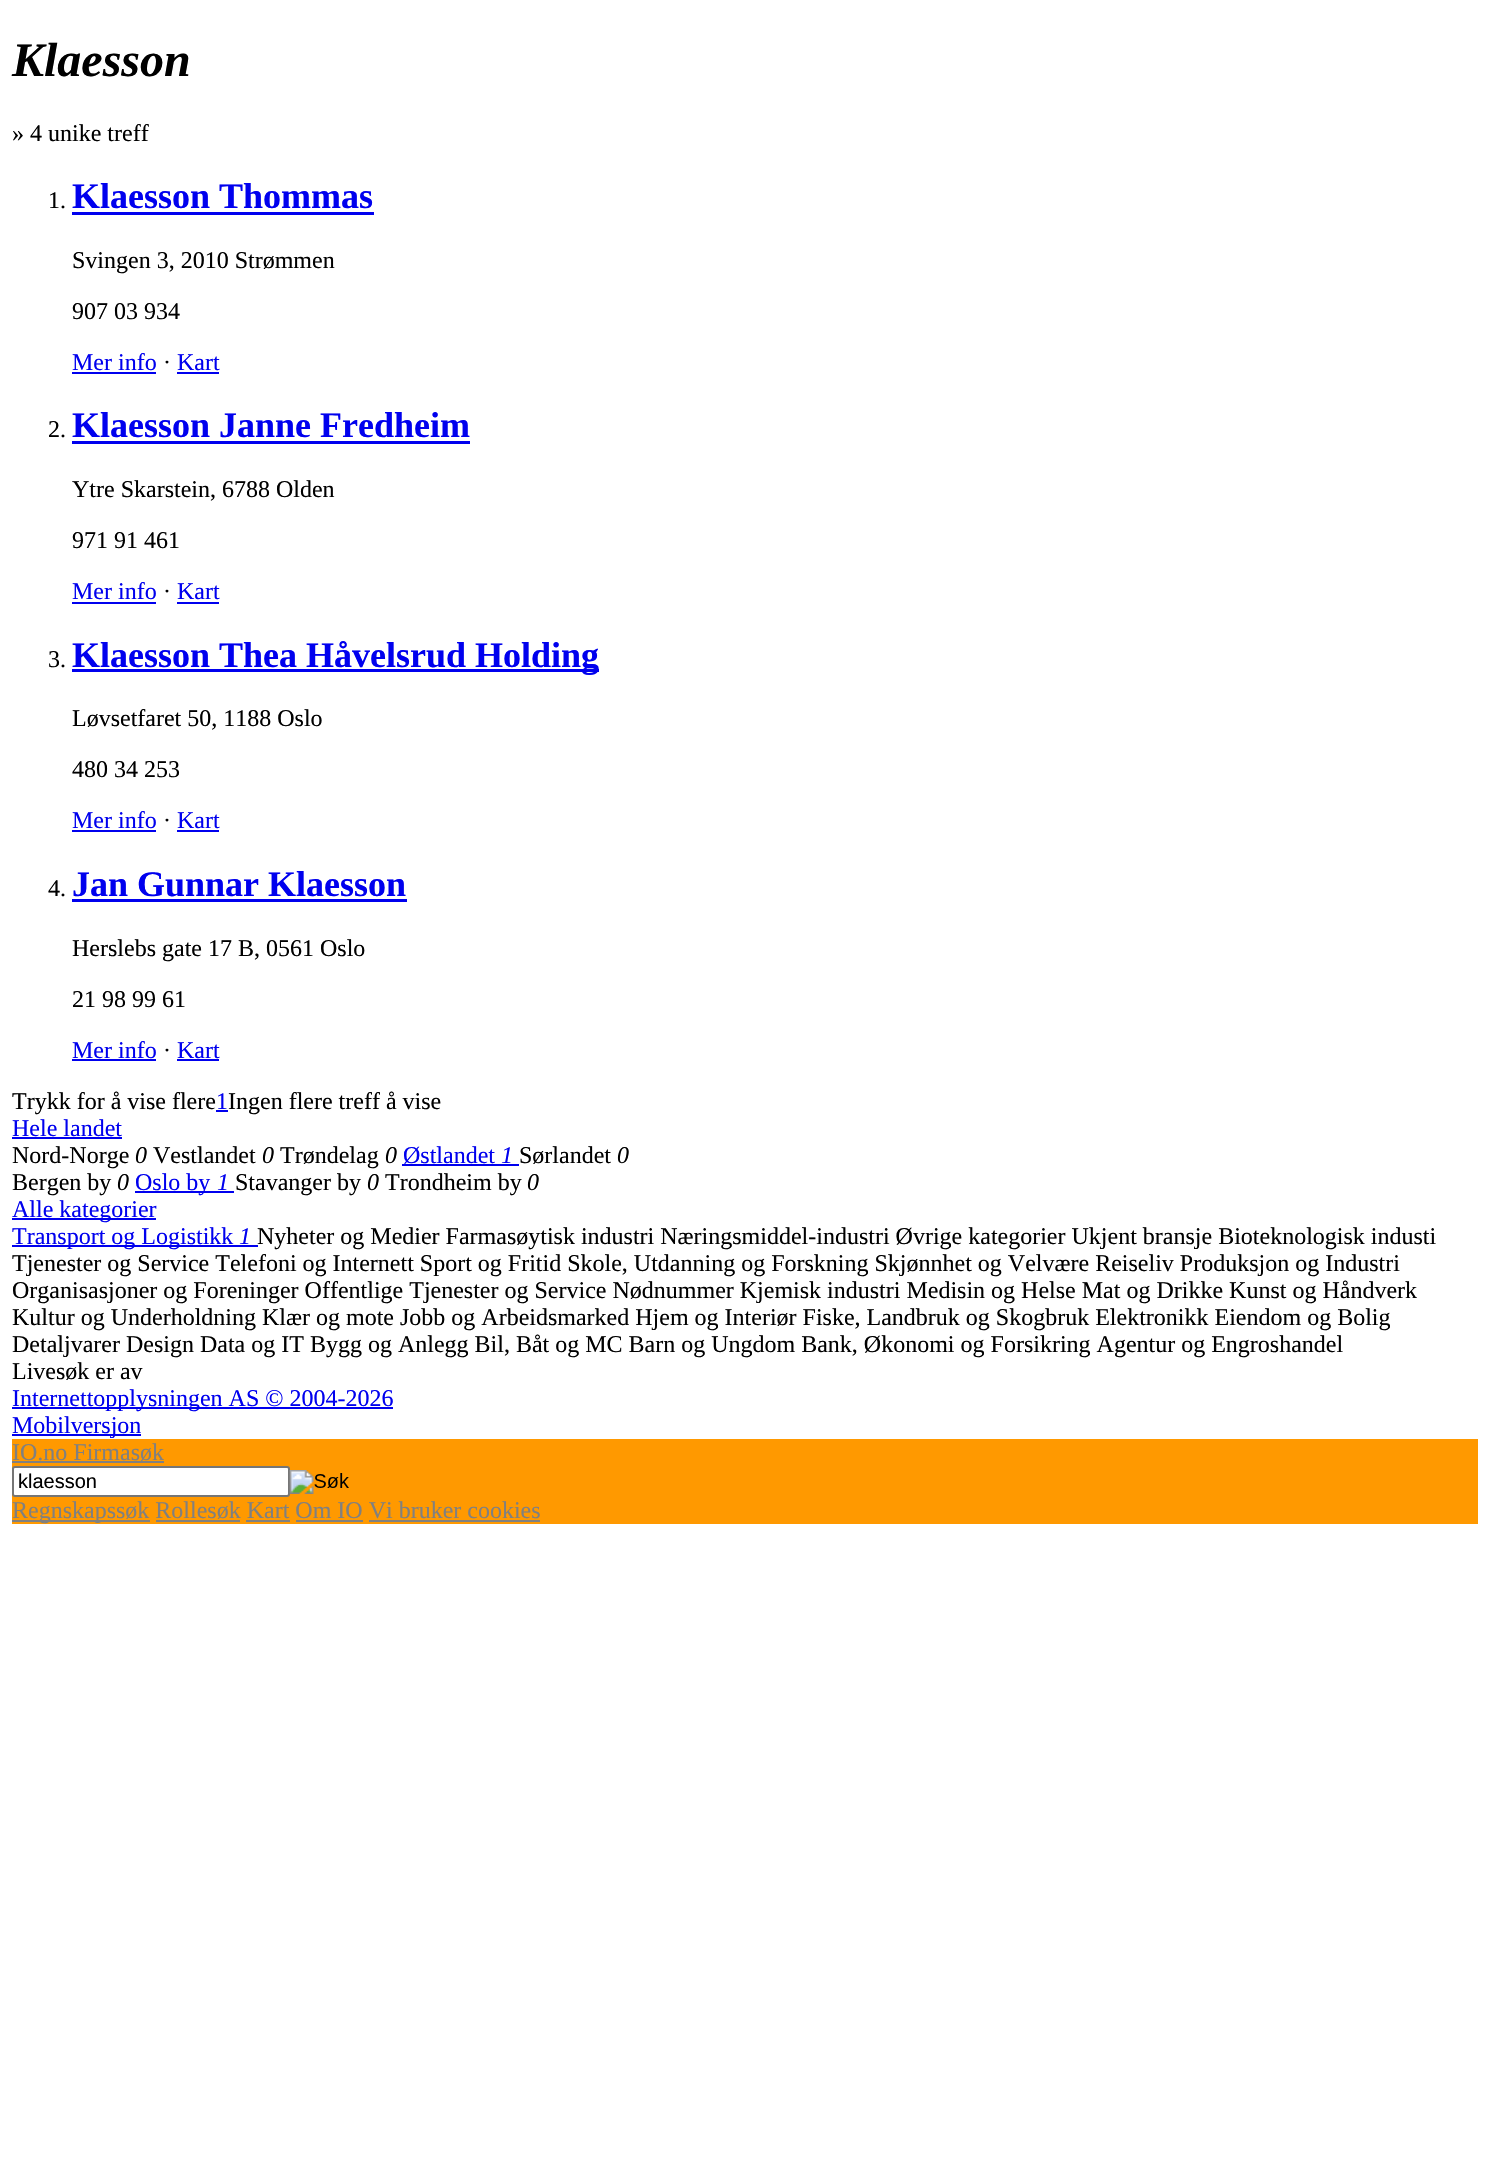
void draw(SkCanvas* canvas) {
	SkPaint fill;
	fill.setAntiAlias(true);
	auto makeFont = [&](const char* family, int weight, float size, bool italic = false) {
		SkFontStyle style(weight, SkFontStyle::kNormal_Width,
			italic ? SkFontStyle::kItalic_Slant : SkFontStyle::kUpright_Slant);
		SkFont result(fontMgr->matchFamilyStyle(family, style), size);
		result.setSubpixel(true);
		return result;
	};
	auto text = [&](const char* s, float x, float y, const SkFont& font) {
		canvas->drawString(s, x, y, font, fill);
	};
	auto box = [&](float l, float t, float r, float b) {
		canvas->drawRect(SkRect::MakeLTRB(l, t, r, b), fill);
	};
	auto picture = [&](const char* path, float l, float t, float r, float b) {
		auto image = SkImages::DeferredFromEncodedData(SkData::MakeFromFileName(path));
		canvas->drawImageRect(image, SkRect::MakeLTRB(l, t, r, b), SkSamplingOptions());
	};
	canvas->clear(0xFFFFFFFF);
	fill.setColor(0xFF0000EE);
	box(72, 212, 374, 215);
	box(72, 372, 156, 374);
	box(177, 372, 219, 374);
	box(72, 441, 470, 444);
	box(72, 602, 156, 604);
	box(177, 602, 219, 604);
	box(72, 669, 599, 672);
	box(72, 830, 156, 832);
	box(177, 830, 219, 832);
	box(72, 899, 407, 902);
	box(72, 1059, 156, 1061);
	box(177, 1059, 219, 1061);
	box(216, 1110, 228, 1112);
	box(12, 1137, 122, 1139);
	box(402, 1164, 519, 1166);
	box(135, 1191, 234, 1193);
	box(12, 1218, 156, 1220);
	box(12, 1245, 258, 1247);
	box(12, 1407, 393, 1409);
	box(12, 1434, 141, 1436);
	fill.setColor(0xFFFF9900);
	box(12, 1439, 1478, 1524);
	fill.setColor(0xFF808080);
	box(12, 1461, 164, 1463);
	fill.setColor(0xFFFFFFFF);
	canvas->drawRoundRect(SkRect::MakeLTRB(13, 1467, 289, 1496), 2, 2, fill);
	fill.setStyle(SkPaint::kStroke_Style);
	fill.setStrokeWidth(2);
	fill.setColor(0xFF767676);
	canvas->drawRoundRect(SkRect::MakeLTRB(13, 1467, 289, 1496), 2, 2, fill);
	picture("image0.png", 289, 1470, 349, 1494);
	fill.setStyle(SkPaint::kFill_Style);
	fill.setColor(0xFF808080);
	box(12, 1520, 150, 1522);
	box(156, 1520, 240, 1522);
	box(246, 1520, 290, 1522);
	box(296, 1520, 363, 1522);
	box(369, 1520, 540, 1522);
	auto font1 = makeFont("Liberation Serif", 700, 48, true);
	fill.setColor(0xFF000000);
	text("Klaesson", 12, 76, font1);
	auto font2 = makeFont("Liberation Serif", 400, 24);
	text("» 4 unike treff", 12, 141, font2);
	text("1.", 48, 208, font2);
	auto font3 = makeFont("Liberation Serif", 700, 36);
	fill.setColor(0xFF0000EE);
	text("Klaesson Thommas", 72, 208, font3);
	fill.setColor(0xFF000000);
	text("Svingen 3, 2010 Strømmen", 72, 268, font2);
	text("907 03 934", 72, 319, font2);
	fill.setColor(0xFF0000EE);
	text("Mer info", 72, 370, font2);
	fill.setColor(0xFF000000);
	text("·", 163, 370, font2);
	fill.setColor(0xFF0000EE);
	text("Kart", 177, 370, font2);
	fill.setColor(0xFF000000);
	text("2.", 48, 437, font2);
	fill.setColor(0xFF0000EE);
	text("Klaesson Janne Fredheim", 72, 437, font3);
	fill.setColor(0xFF000000);
	text("Ytre Skarstein, 6788 Olden", 72, 497, font2);
	text("971 91 461", 72, 548, font2);
	fill.setColor(0xFF0000EE);
	text("Mer info", 72, 599, font2);
	fill.setColor(0xFF000000);
	text("·", 163, 599, font2);
	fill.setColor(0xFF0000EE);
	text("Kart", 177, 599, font2);
	fill.setColor(0xFF000000);
	text("3.", 48, 667, font2);
	fill.setColor(0xFF0000EE);
	text("Klaesson Thea Håvelsrud Holding", 72, 667, font3);
	fill.setColor(0xFF000000);
	text("Løvsetfaret 50, 1188 Oslo", 72, 726, font2);
	text("480 34 253", 72, 777, font2);
	fill.setColor(0xFF0000EE);
	text("Mer info", 72, 828, font2);
	fill.setColor(0xFF000000);
	text("·", 163, 828, font2);
	fill.setColor(0xFF0000EE);
	text("Kart", 177, 828, font2);
	fill.setColor(0xFF000000);
	text("4.", 48, 896, font2);
	fill.setColor(0xFF0000EE);
	text("Jan Gunnar Klaesson", 72, 896, font3);
	fill.setColor(0xFF000000);
	text("Herslebs gate 17 B, 0561 Oslo", 72, 956, font2);
	text("21 98 99 61", 72, 1007, font2);
	fill.setColor(0xFF0000EE);
	text("Mer info", 72, 1058, font2);
	fill.setColor(0xFF000000);
	text("·", 163, 1058, font2);
	fill.setColor(0xFF0000EE);
	text("Kart", 177, 1058, font2);
	fill.setColor(0xFF000000);
	text("Trykk for å vise flere", 12, 1109, font2);
	fill.setColor(0xFF0000EE);
	text("1", 216, 1109, font2);
	fill.setColor(0xFF000000);
	text("Ingen flere treff å vise", 228, 1109, font2);
	fill.setColor(0xFF0000EE);
	text("Hele landet", 12, 1136, font2);
	fill.setColor(0xFF000000);
	text("Nord-Norge", 12, 1163, font2);
	auto font4 = makeFont("Liberation Serif", 400, 24, true);
	text("0", 135, 1163, font4);
	text("Vestlandet", 153, 1163, font2);
	text("0", 262, 1163, font4);
	text("Trøndelag", 280, 1163, font2);
	text("0", 385, 1163, font4);
	fill.setColor(0xFF0000EE);
	text("Østlandet", 403, 1163, font2);
	text("1", 501, 1163, font4);
	fill.setColor(0xFF000000);
	text("Sørlandet", 519, 1163, font2);
	text("0", 617, 1163, font4);
	text("Bergen by", 12, 1190, font2);
	text("0", 117, 1190, font4);
	fill.setColor(0xFF0000EE);
	text("Oslo by", 135, 1190, font2);
	text("1", 217, 1190, font4);
	fill.setColor(0xFF000000);
	text("Stavanger by", 235, 1190, font2);
	text("0", 367, 1190, font4);
	text("Trondheim by", 385, 1190, font2);
	text("0", 527, 1190, font4);
	fill.setColor(0xFF0000EE);
	text("Alle kategorier", 12, 1217, font2);
	text("Transport og Logistikk", 12, 1244, font2);
	text("1", 239, 1244, font4);
	fill.setColor(0xFF000000);
	text("Nyheter og Medier Farmasøytisk industri Næringsmiddel-industri Øvrige kategorier Ukjent bransje Bioteknologisk industi", 257, 1244, font2);
	text("Tjenester og Service Telefoni og Internett Sport og Fritid Skole, Utdanning og Forskning Skjønnhet og Velvære Reiseliv Produksjon og Industri", 12, 1271, font2);
	text("Organisasjoner og Foreninger Offentlige Tjenester og Service Nødnummer Kjemisk industri Medisin og Helse Mat og Drikke Kunst og Håndverk", 12, 1298, font2);
	text("Kultur og Underholdning Klær og mote Jobb og Arbeidsmarked Hjem og Interiør Fiske, Landbruk og Skogbruk Elektronikk Eiendom og Bolig", 12, 1325, font2);
	text("Detaljvarer Design Data og IT Bygg og Anlegg Bil, Båt og MC Barn og Ungdom Bank, Økonomi og Forsikring Agentur og Engroshandel", 12, 1352, font2);
	text("Livesøk er av", 12, 1379, font2);
	fill.setColor(0xFF0000EE);
	text("Internettopplysningen AS © 2004-2026", 12, 1406, font2);
	text("Mobilversjon", 12, 1433, font2);
	fill.setColor(0xFF808080);
	text("IO.no Firmasøk", 12, 1460, font2);
	auto font5 = makeFont("Liberation Sans", 400, 20);
	fill.setColor(0xFF000000);
	text("klaesson", 18, 1488, font5);
	fill.setColor(0xFF808080);
	text("Regnskapssøk Rollesøk Kart Om IO Vi bruker cookies", 12, 1518, font2);
}
